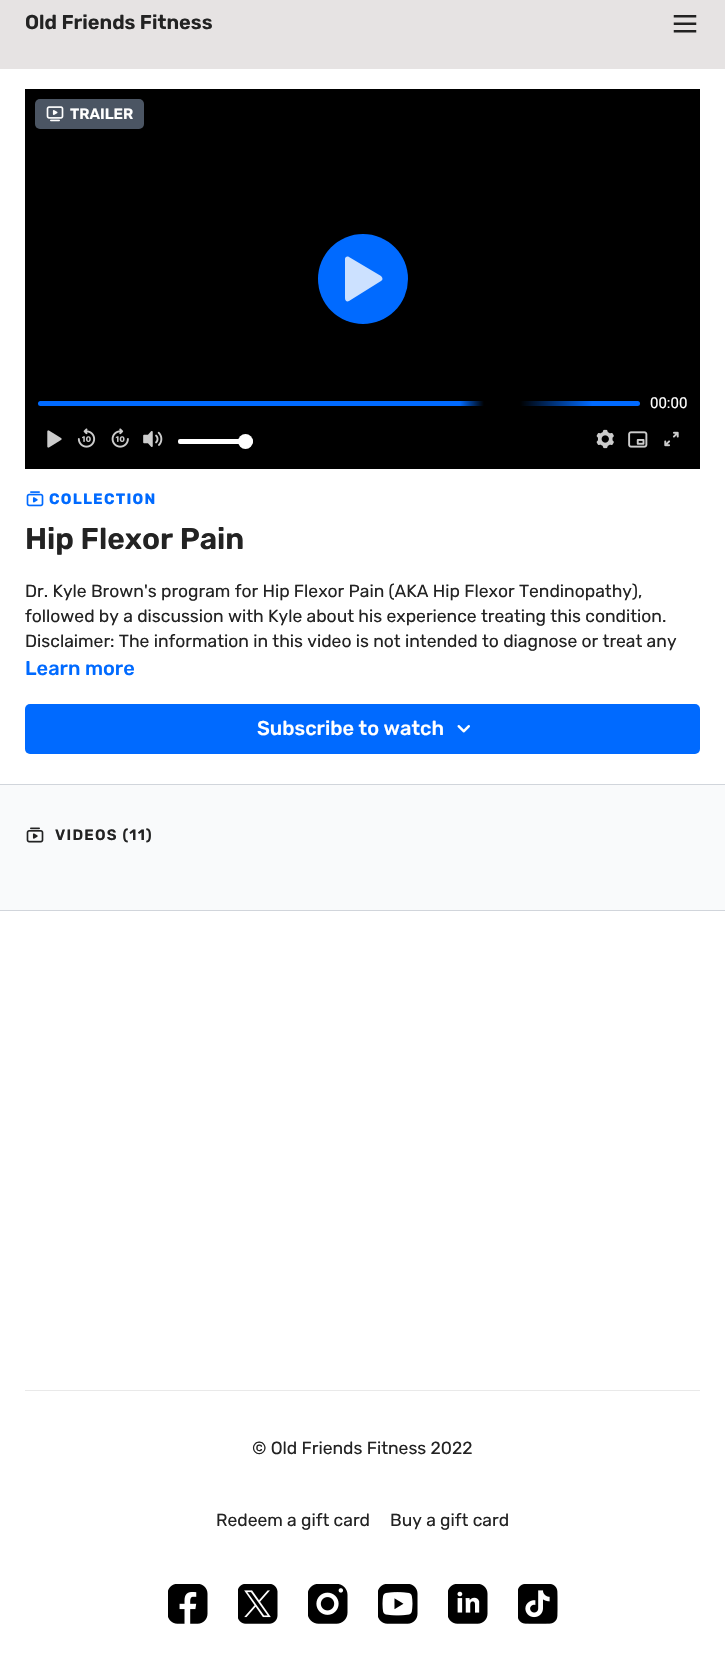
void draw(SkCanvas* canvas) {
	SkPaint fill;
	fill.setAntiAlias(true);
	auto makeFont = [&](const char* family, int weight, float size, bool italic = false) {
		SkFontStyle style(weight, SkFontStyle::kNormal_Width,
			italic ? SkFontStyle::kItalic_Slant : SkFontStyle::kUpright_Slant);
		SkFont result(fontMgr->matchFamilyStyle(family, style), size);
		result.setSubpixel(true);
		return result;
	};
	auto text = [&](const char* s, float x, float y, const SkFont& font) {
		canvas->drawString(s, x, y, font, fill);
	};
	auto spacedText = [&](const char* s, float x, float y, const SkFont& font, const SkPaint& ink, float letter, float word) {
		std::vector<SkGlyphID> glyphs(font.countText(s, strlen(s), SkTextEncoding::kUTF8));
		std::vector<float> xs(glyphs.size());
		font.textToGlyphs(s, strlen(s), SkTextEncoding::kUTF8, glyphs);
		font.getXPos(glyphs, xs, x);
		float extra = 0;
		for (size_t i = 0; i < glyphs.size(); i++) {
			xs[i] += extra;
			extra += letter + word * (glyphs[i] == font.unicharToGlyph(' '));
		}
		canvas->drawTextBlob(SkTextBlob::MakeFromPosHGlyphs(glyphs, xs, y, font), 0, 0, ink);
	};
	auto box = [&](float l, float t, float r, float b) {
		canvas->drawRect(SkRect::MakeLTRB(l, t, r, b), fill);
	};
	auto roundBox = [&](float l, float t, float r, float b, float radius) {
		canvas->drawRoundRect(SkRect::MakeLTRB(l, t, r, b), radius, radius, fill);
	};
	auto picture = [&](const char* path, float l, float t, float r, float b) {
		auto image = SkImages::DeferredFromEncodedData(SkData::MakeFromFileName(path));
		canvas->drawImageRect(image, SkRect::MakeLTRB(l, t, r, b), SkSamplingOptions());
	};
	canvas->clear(0xFFFFFFFF);
	fill.setColor(0xFFE6E3E3);
	box(0, 0, 725, 69);
	picture("image0.png", 673, 15, 697, 33);
	fill.setColor(0xFF000000);
	box(25, 89, 700, 469);
	fill.setColor(0xFF4B5563);
	roundBox(35, 99, 144, 129, 5);
	picture("image1.png", 46, 106, 64, 122);
	fill.setColor(0xFF006AFF);
	canvas->drawCircle(363, 279, 45, fill);
	fill.setColor(0xFFCCE1FF);
	canvas->drawPath(SkPathBuilder().moveTo(349, 257).cubicTo(347, 256, 345, 257, 345, 259).lineTo(345, 298).cubicTo(345, 301, 347, 302, 349, 301).lineTo(381, 281).cubicTo(383, 280, 383, 278, 381, 276).close().detach(), fill);
	{
		const SkColor colors[] = {0xFF006AFF, 0xFF000000, 0xFF000000, 0xFF006AFF, 0xFF006AFF};
		const float stops[] = {0.35f, 0.37f, 0.4f, 0.46f, 1};
		const SkPoint ends[] = {{38, 406}, {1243, 406}};
		fill.setShader(SkGradientShader::MakeLinear(ends, colors, stops, 5, SkTileMode::kClamp));
		fill.setAlpha(255);
	}
	roundBox(38, 401, 640, 406, 2.5f);
	picture("image2.png", 47, 430, 62, 448);
	picture("image3.png", 77, 428, 96, 448);
	picture("image4.png", 111, 428, 129, 448);
	picture("image5.png", 143, 431, 163, 447);
	fill.setShader(nullptr);
	fill.setColor(0xFFFFFFFF);
	roundBox(178, 439, 253, 444, 2);
	canvas->drawCircle(245.5f, 441.5f, 7.5f, fill);
	picture("image6.png", 596, 429, 614, 449);
	picture("image7.png", 628, 431, 648, 448);
	picture("image8.png", 664, 431, 679, 447);
	picture("image9.png", 26, 491, 44, 507);
	fill.setColor(0xFF006AFF);
	roundBox(25, 704, 700, 754, 5);
	picture("image10.png", 457, 725, 470, 733);
	fill.setColor(0xFFF9FAFB);
	box(0, 785, 725, 910);
	fill.setColor(0xFFD1D5DB);
	box(0, 784, 725, 785);
	box(0, 910, 725, 911);
	picture("image11.png", 26, 827, 44, 843);
	fill.setColor(0xFFE9E9E9);
	box(25, 1390, 700, 1391);
	picture("image12.png", 168, 1584, 208, 1624);
	picture("image13.png", 238, 1584, 278, 1624);
	picture("image14.png", 308, 1584, 348, 1624);
	picture("image15.png", 378, 1584, 418, 1624);
	picture("image16.png", 448, 1584, 488, 1624);
	picture("image17.png", 518, 1584, 558, 1624);
	auto font1 = makeFont("Rubik", 600, 20);
	fill.setColor(0xFF232323);
	text("Old Friends Fitness", 25, 29, font1);
	auto font2 = makeFont("Rubik", 600, 15);
	fill.setColor(0xFFFFFFFF);
	text("TRAILER", 70, 119, font2);
	auto font3 = makeFont("Roboto", 400, 15);
	text("00:00", 650, 408, font3);
	auto font4 = makeFont("Rubik", 700, 15);
	fill.setColor(0xFF006AFF);
	spacedText("COLLECTION", 49, 504, font4, fill, 1.25f, 0);
	auto font5 = makeFont("Rubik", 600, 30);
	fill.setColor(0xFF232323);
	text("Hip Flexor Pain", 25, 549, font5);
	auto font6 = makeFont("Rubik", 400, 17.5f);
	text("Dr. Kyle Brown's program for Hip Flexor Pain (AKA Hip Flexor Tendinopathy),", 25, 597, font6);
	text("followed by a discussion with Kyle about his experience treating this condition.", 25, 622, font6);
	text("Disclaimer: The information in this video is not intended to diagnose or treat any", 25, 647, font6);
	auto font7 = makeFont("Rubik", 500, 20);
	fill.setColor(0xFF006AFF);
	text("Learn more", 25, 675, font7);
	fill.setColor(0xFFFFFFFF);
	text("Subscribe to watch", 257, 735, font7);
	fill.setColor(0xFF232323);
	spacedText("VIDEOS (11)", 55, 840, font2, fill, 1.25f, 0);
	text("© Old Friends Fitness 2022", 252, 1454, font6);
	text("Redeem a gift card", 216, 1526, font6);
	text("Buy a gift card", 390, 1526, font6);
}
